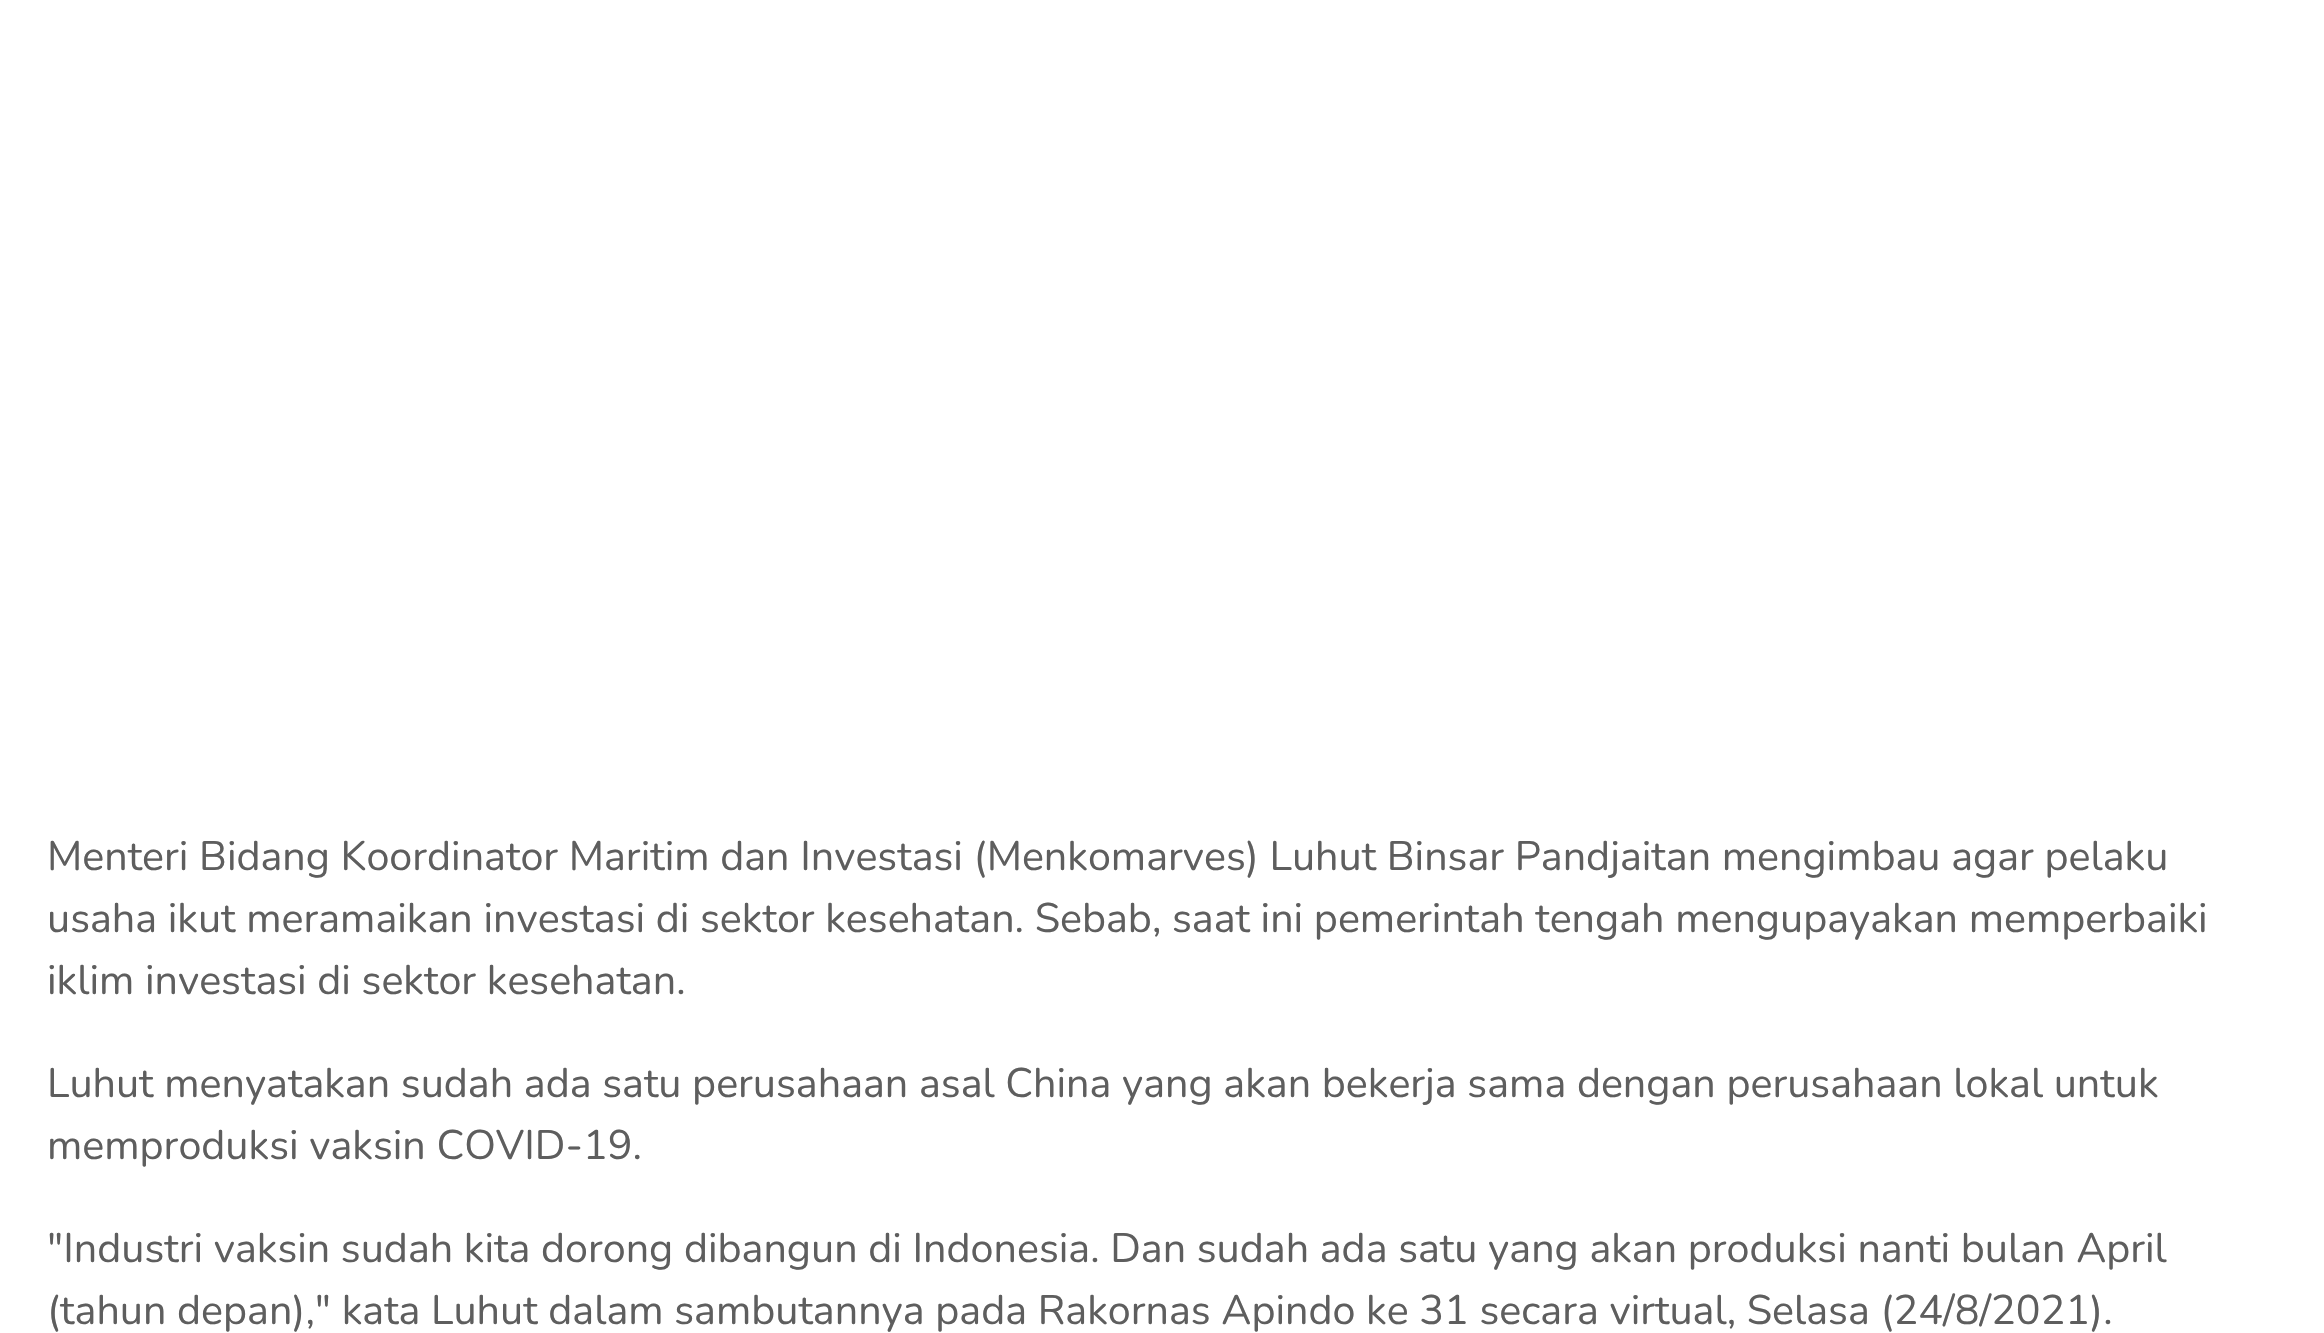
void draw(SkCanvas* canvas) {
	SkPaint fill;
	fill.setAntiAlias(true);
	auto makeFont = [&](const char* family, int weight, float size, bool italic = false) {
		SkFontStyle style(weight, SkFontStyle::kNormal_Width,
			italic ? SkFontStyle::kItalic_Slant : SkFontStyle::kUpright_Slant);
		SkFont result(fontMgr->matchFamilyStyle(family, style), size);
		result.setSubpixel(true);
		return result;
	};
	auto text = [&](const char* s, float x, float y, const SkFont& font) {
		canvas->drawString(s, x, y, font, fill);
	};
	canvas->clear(0xFFFFFFFF);
	auto font1 = makeFont("Nunito", 400, 41.25f);
	fill.setColor(0xFF5E5E5E);
	text("Menteri Bidang Koordinator Maritim dan Investasi (Menkomarves) Luhut Binsar Pandjaitan mengimbau agar pelaku", 47, 870, font1);
	text("usaha ikut meramaikan investasi di sektor kesehatan. Sebab, saat ini pemerintah tengah mengupayakan memperbaiki", 47, 932, font1);
	text("iklim investasi di sektor kesehatan.", 47, 994, font1);
	text("Luhut menyatakan sudah ada satu perusahaan asal China yang akan bekerja sama dengan perusahaan lokal untuk", 47, 1097, font1);
	text("memproduksi vaksin COVID-19.", 47, 1159, font1);
	text("\"Industri vaksin sudah kita dorong dibangun di Indonesia. Dan sudah ada satu yang akan produksi nanti bulan April", 47, 1262, font1);
	text("(tahun depan),\" kata Luhut dalam sambutannya pada Rakornas Apindo ke 31 secara virtual, Selasa (24/8/2021).", 47, 1324, font1);
}
